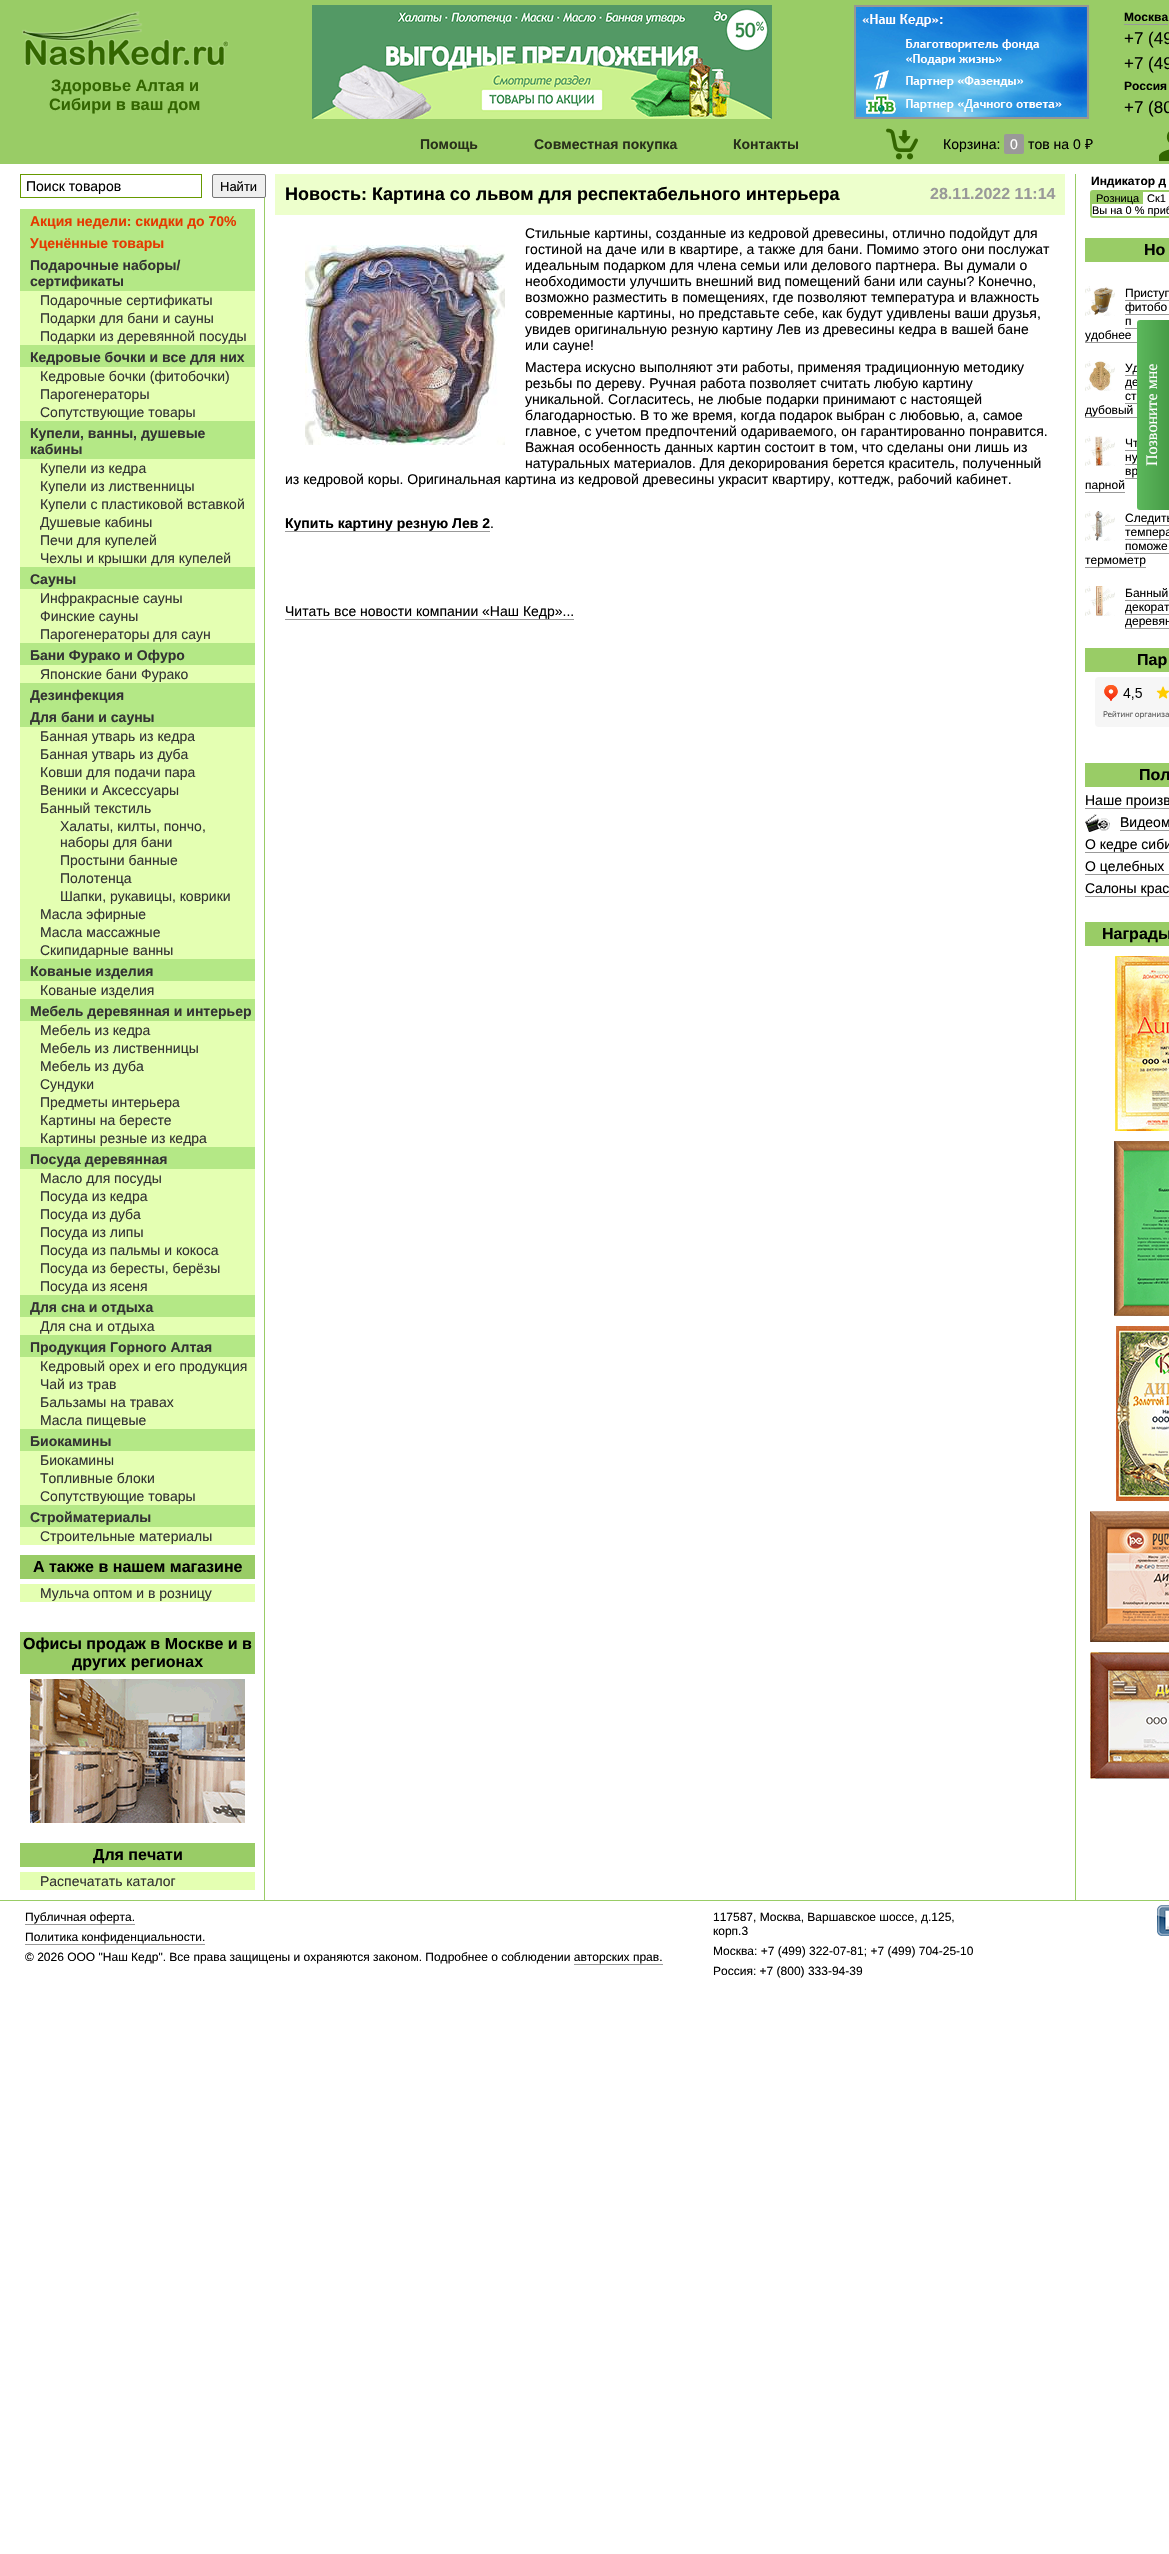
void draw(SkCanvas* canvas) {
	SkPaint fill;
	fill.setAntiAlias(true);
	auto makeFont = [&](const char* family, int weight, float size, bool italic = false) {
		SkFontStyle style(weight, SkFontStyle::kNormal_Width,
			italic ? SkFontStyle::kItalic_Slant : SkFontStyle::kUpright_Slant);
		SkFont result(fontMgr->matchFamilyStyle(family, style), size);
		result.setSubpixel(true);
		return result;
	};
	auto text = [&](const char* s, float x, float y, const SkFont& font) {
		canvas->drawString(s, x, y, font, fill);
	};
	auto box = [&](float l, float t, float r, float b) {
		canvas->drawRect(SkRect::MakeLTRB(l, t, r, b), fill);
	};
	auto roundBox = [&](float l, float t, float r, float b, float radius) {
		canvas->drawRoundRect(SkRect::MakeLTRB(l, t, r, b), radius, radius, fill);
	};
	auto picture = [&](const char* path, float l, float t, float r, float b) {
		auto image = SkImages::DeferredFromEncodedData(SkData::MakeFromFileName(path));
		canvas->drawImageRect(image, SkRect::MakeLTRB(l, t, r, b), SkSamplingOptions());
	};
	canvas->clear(0xFFFFFFFF);
	fill.setColor(0xFF99CC66);
	box(0, 0, 1169, 164);
	picture("image0.png", 22, 11, 229, 66);
	picture("image1.png", 312, 5, 772, 119);
	picture("image2.png", 854, 5, 1089, 119);
	fill.setColor(0xFF999999);
	box(1124, 24, 1168, 25);
	picture("image3.png", 886, 128, 918, 160);
	fill.setColor(0xFF9A9999);
	roundBox(1004, 134, 1024, 154, 2);
	picture("image4.png", 1159, 131, 1169, 161);
	fill.setColor(0xFF99CC66);
	box(264, 174, 265, 1900);
	fill.setStyle(SkPaint::kStroke_Style);
	fill.setStrokeWidth(1);
	fill.setColor(0xFF669900);
	canvas->drawRect(SkRect::MakeLTRB(20.5f, 174.5f, 201.5f, 197.5f), fill);
	fill.setStyle(SkPaint::kFill_Style);
	fill.setColor(0xFFEFEFEF);
	canvas->drawRoundRect(SkRect::MakeLTRB(212.5f, 174.5f, 265.5f, 197.5f), 1.5f, 1.5f, fill);
	fill.setStyle(SkPaint::kStroke_Style);
	fill.setColor(0xFF767676);
	canvas->drawRoundRect(SkRect::MakeLTRB(212.5f, 174.5f, 265.5f, 197.5f), 1.5f, 1.5f, fill);
	fill.setStyle(SkPaint::kFill_Style);
	fill.setColor(0xFFB4E886);
	box(20, 209, 255, 291);
	fill.setColor(0xFFE4FFB2);
	box(20, 291, 255, 345);
	fill.setColor(0xFFB4E886);
	box(20, 345, 255, 367);
	fill.setColor(0xFFE4FFB2);
	box(20, 367, 255, 421);
	fill.setColor(0xFFB4E886);
	box(20, 421, 255, 459);
	fill.setColor(0xFFE4FFB2);
	box(20, 459, 255, 567);
	fill.setColor(0xFFB4E886);
	box(20, 567, 255, 589);
	fill.setColor(0xFFE4FFB2);
	box(20, 589, 255, 643);
	fill.setColor(0xFFB4E886);
	box(20, 643, 255, 665);
	fill.setColor(0xFFE4FFB2);
	box(20, 665, 255, 683);
	fill.setColor(0xFFB4E886);
	box(20, 683, 255, 727);
	fill.setColor(0xFFE4FFB2);
	box(20, 727, 255, 959);
	fill.setColor(0xFFB4E886);
	box(20, 959, 255, 981);
	fill.setColor(0xFFE4FFB2);
	box(20, 981, 255, 999);
	fill.setColor(0xFFB4E886);
	box(20, 999, 255, 1021);
	fill.setColor(0xFFE4FFB2);
	box(20, 1021, 255, 1147);
	fill.setColor(0xFFB4E886);
	box(20, 1147, 255, 1169);
	fill.setColor(0xFFE4FFB2);
	box(20, 1169, 255, 1295);
	fill.setColor(0xFFB4E886);
	box(20, 1295, 255, 1317);
	fill.setColor(0xFFE4FFB2);
	box(20, 1317, 255, 1335);
	fill.setColor(0xFFB4E886);
	box(20, 1335, 255, 1357);
	fill.setColor(0xFFE4FFB2);
	box(20, 1357, 255, 1429);
	fill.setColor(0xFFB4E886);
	box(20, 1429, 255, 1451);
	fill.setColor(0xFFE4FFB2);
	box(20, 1451, 255, 1505);
	fill.setColor(0xFFB4E886);
	box(20, 1505, 255, 1527);
	fill.setColor(0xFFE4FFB2);
	box(20, 1527, 255, 1545);
	fill.setColor(0xFF99CC66);
	box(20, 1555, 255, 1579);
	fill.setColor(0xFFE4FFB2);
	box(20, 1584, 255, 1602);
	fill.setColor(0xFF99CC66);
	box(20, 1632, 255, 1674);
	picture("image5.png", 30, 1679, 245, 1823);
	box(20, 1843, 255, 1867);
	fill.setColor(0xFFE4FFB2);
	box(20, 1872, 255, 1890);
	fill.setColor(0xFFEDFFCC);
	box(275, 174, 1065, 215);
	picture("image6.png", 305, 245, 505, 445);
	fill.setColor(0xFF999999);
	box(285, 531, 490, 532);
	box(285, 619, 574, 620);
	fill.setColor(0xFF99CC66);
	box(1075, 174, 1076, 1900);
	fill.setStyle(SkPaint::kStroke_Style);
	fill.setStrokeWidth(2);
	canvas->drawRoundRect(SkRect::MakeLTRB(1091, 191, 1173, 217), 2, 2, fill);
	fill.setStyle(SkPaint::kFill_Style);
	box(1092, 192, 1143, 204);
	box(1085, 238, 1169, 262);
	picture("image7.png", 1085, 286, 1115, 316);
	fill.setColor(0xFF999999);
	box(1125, 300, 1169, 301);
	box(1125, 314, 1169, 315);
	box(1125, 328, 1137, 329);
	box(1085, 342, 1137, 343);
	picture("image8.png", 1085, 361, 1115, 391);
	box(1125, 375, 1137, 376);
	box(1125, 389, 1137, 390);
	box(1125, 403, 1137, 404);
	box(1085, 417, 1137, 418);
	picture("image9.png", 1085, 436, 1115, 466);
	box(1125, 450, 1137, 451);
	box(1125, 464, 1137, 465);
	box(1125, 478, 1137, 479);
	box(1085, 492, 1125, 493);
	picture("image10.png", 1085, 511, 1115, 541);
	box(1125, 525, 1169, 526);
	box(1125, 539, 1169, 540);
	box(1125, 553, 1169, 554);
	box(1085, 567, 1146, 568);
	picture("image11.png", 1085, 586, 1115, 616);
	box(1125, 600, 1169, 601);
	box(1125, 614, 1169, 615);
	box(1125, 628, 1169, 629);
	fill.setColor(0xFF99CC66);
	box(1085, 648, 1169, 672);
	picture("image12.png", 1095, 677, 1169, 727);
	box(1085, 763, 1169, 787);
	fill.setColor(0xFF999999);
	box(1085, 808, 1169, 809);
	picture("image13.png", 1085, 814, 1110, 832);
	box(1120, 830, 1169, 831);
	box(1085, 852, 1169, 853);
	box(1085, 874, 1169, 875);
	box(1085, 896, 1169, 897);
	fill.setColor(0xFF99CC66);
	box(1085, 922, 1169, 946);
	picture("image14.png", 1115, 956, 1169, 1131);
	picture("image15.png", 1114, 1141, 1169, 1316);
	picture("image16.png", 1116, 1326, 1169, 1501);
	picture("image17.png", 1090, 1511, 1169, 1642);
	picture("image18.png", 1090, 1652, 1169, 1779);
	box(0, 1900, 1169, 1901);
	fill.setColor(0xFF999999);
	box(25, 1924, 135, 1925);
	box(25, 1944, 205, 1945);
	box(574, 1964, 663, 1965);
	picture("image19.png", 1157, 1905, 1169, 1936);
	auto font1 = makeFont("Liberation Sans", 700, 16.4f);
	fill.setColor(0xFF336600);
	text("Здоровье Алтая и", 51, 91, font1);
	text("Сибири в ваш дом", 49, 110, font1);
	auto font2 = makeFont("Liberation Sans", 700, 12);
	fill.setColor(0xFF000000);
	text("Москва", 1124, 21, font2);
	auto font3 = makeFont("Liberation Sans", 400, 17);
	text("+7 (49", 1124, 44, font3);
	text("+7 (49", 1124, 69, font3);
	text("Россия", 1124, 90, font2);
	text("+7 (80", 1124, 113, font3);
	auto font4 = makeFont("Liberation Sans", 700, 14);
	fill.setColor(0xFF28301A);
	text("Помощь", 420, 149, font4);
	text("Совместная покупка", 534, 149, font4);
	text("Контакты", 733, 149, font4);
	auto font5 = makeFont("Liberation Sans", 400, 14);
	fill.setColor(0xFF000000);
	text("Корзина:", 943, 149, font5);
	fill.setColor(0xFFFFFFFF);
	text("0", 1010, 149, font5);
	fill.setColor(0xFF000000);
	text("тов на 0", 1028, 149, font5);
	auto font6 = makeFont("Noto Sans", 400, 14);
	text("₽", 1085, 149, font6);
	text("Поиск товаров", 26, 191, font5);
	auto font7 = makeFont("Liberation Sans", 400, 13);
	text("Найти", 220, 191, font7);
	fill.setColor(0xFFE53900);
	text("Акция недели: скидки до 70%", 30, 226, font4);
	text("Уценённые товары", 30, 248, font4);
	fill.setColor(0xFF333333);
	text("Подарочные наборы/", 30, 270, font4);
	text("сертификаты", 30, 286, font4);
	text("Подарочные сертификаты", 40, 305, font5);
	text("Подарки для бани и сауны", 40, 323, font5);
	text("Подарки из деревянной посуды", 40, 341, font5);
	text("Кедровые бочки и все для них", 30, 362, font4);
	text("Кедровые бочки (фитобочки)", 40, 381, font5);
	text("Парогенераторы", 40, 399, font5);
	text("Сопутствующие товары", 40, 417, font5);
	text("Купели, ванны, душевые", 30, 438, font4);
	text("кабины", 30, 454, font4);
	text("Купели из кедра", 40, 473, font5);
	text("Купели из лиственницы", 40, 491, font5);
	text("Купели с пластиковой вставкой", 40, 509, font5);
	text("Душевые кабины", 40, 527, font5);
	text("Печи для купелей", 40, 545, font5);
	text("Чехлы и крышки для купелей", 40, 563, font5);
	text("Сауны", 30, 584, font4);
	text("Инфракрасные сауны", 40, 603, font5);
	text("Финские сауны", 40, 621, font5);
	text("Парогенераторы для саун", 40, 639, font5);
	text("Бани Фурако и Офуро", 30, 660, font4);
	text("Японские бани Фурако", 40, 679, font5);
	text("Дезинфекция", 30, 700, font4);
	text("Для бани и сауны", 30, 722, font4);
	text("Банная утварь из кедра", 40, 741, font5);
	text("Банная утварь из дуба", 40, 759, font5);
	text("Ковши для подачи пара", 40, 777, font5);
	text("Веники и Аксессуары", 40, 795, font5);
	text("Банный текстиль", 40, 813, font5);
	text("Халаты, килты, пончо,", 60, 831, font5);
	text("наборы для бани", 60, 847, font5);
	text("Простыни банные", 60, 865, font5);
	text("Полотенца", 60, 883, font5);
	text("Шапки, рукавицы, коврики", 60, 901, font5);
	text("Масла эфирные", 40, 919, font5);
	text("Масла массажные", 40, 937, font5);
	text("Скипидарные ванны", 40, 955, font5);
	text("Кованые изделия", 30, 976, font4);
	text("Кованые изделия", 40, 995, font5);
	text("Мебель деревянная и интерьер", 30, 1016, font4);
	text("Мебель из кедра", 40, 1035, font5);
	text("Мебель из лиственницы", 40, 1053, font5);
	text("Мебель из дуба", 40, 1071, font5);
	text("Сундуки", 40, 1089, font5);
	text("Предметы интерьера", 40, 1107, font5);
	text("Картины на бересте", 40, 1125, font5);
	text("Картины резные из кедра", 40, 1143, font5);
	text("Посуда деревянная", 30, 1164, font4);
	text("Масло для посуды", 40, 1183, font5);
	text("Посуда из кедра", 40, 1201, font5);
	text("Посуда из дуба", 40, 1219, font5);
	text("Посуда из липы", 40, 1237, font5);
	text("Посуда из пальмы и кокоса", 40, 1255, font5);
	text("Посуда из бересты, берёзы", 40, 1273, font5);
	text("Посуда из ясеня", 40, 1291, font5);
	text("Для сна и отдыха", 30, 1312, font4);
	text("Для сна и отдыха", 40, 1331, font5);
	text("Продукция Горного Алтая", 30, 1352, font4);
	text("Кедровый орех и его продукция", 40, 1371, font5);
	text("Чай из трав", 40, 1389, font5);
	text("Бальзамы на травах", 40, 1407, font5);
	text("Масла пищевые", 40, 1425, font5);
	text("Биокамины", 30, 1446, font4);
	text("Биокамины", 40, 1465, font5);
	text("Топливные блоки", 40, 1483, font5);
	text("Сопутствующие товары", 40, 1501, font5);
	text("Стройматериалы", 30, 1522, font4);
	text("Строительные материалы", 40, 1541, font5);
	auto font8 = makeFont("Liberation Sans", 700, 16);
	fill.setColor(0xFF000000);
	text("А также в нашем магазине", 33, 1572, font8);
	fill.setColor(0xFF333333);
	text("Мульча оптом и в розницу", 40, 1598, font5);
	fill.setColor(0xFF000000);
	text("Офисы продаж в Москве и в", 23, 1649, font8);
	text("других регионах", 72, 1667, font8);
	text("Для печати", 93, 1860, font8);
	fill.setColor(0xFF333333);
	text("Распечатать каталог", 40, 1886, font5);
	auto font9 = makeFont("Liberation Sans", 700, 18);
	fill.setColor(0xFF000000);
	text("Новость: Картина со львом для респектабельного интерьера", 285, 200, font9);
	fill.setColor(0xFF999999);
	text("28.11.2022 11:14", 930, 199, font8);
	fill.setColor(0xFF000000);
	text("Стильные картины, созданные из кедровой древесины, отлично подойдут для", 525, 238, font5);
	text("гостиной на даче или в квартире, а также для бани. Помимо этого они послужат", 525, 254, font5);
	text("идеальным подарком для члена семьи или делового партнера. Вы думали о", 525, 270, font5);
	text("необходимости улучшить внешний вид помещений бани или сауны? Конечно,", 525, 286, font5);
	text("возможно разместить в помещениях, где позволяют температура и влажность", 525, 302, font5);
	text("современные картины, но представьте себе, как будут удивлены ваши друзья,", 525, 318, font5);
	text("увидев оригинальную резную картину Лев из древесины кедра в вашей бане", 525, 334, font5);
	text("или сауне!", 525, 350, font5);
	text("Мастера искусно выполняют эти работы, применяя традиционную методику", 525, 372, font5);
	text("резьбы по дереву. Ручная работа позволяет считать любую картину", 525, 388, font5);
	text("уникальной. Согласитесь, не любые подарки принимают с настоящей", 525, 404, font5);
	text("благодарностью. В то же время, когда подарок выбран с любовью, а, самое", 525, 420, font5);
	text("главное, с учетом предпочтений одариваемого, он гарантированно понравится.", 525, 436, font5);
	text("Важная особенность данных картин состоит в том, что сделаны они лишь из", 525, 452, font5);
	text("натуральных материалов. Для декорирования берется краситель, полученный", 525, 468, font5);
	text("из кедровой коры. Оригинальная картина из кедровой древесины украсит квартиру, коттедж, рабочий кабинет.", 285, 484, font5);
	text("Купить картину резную Лев 2", 285, 528, font4);
	text(".", 490, 528, font5);
	text("Читать все новости компании «Наш Кедр»...", 285, 616, font5);
	text("Индикатор д", 1091, 185, font2);
	auto font10 = makeFont("Liberation Sans", 400, 11);
	text("Розница", 1096, 202, font10);
	text("Ск1", 1147, 202, font10);
	text("Вы на 0 % приб", 1092, 214, font10);
	text("Но", 1144, 255, font8);
	auto font11 = makeFont("Liberation Sans", 400, 12);
	text("Приступ", 1125, 297, font11);
	text("фитобо", 1125, 311, font11);
	text("п", 1125, 325, font11);
	text("удобнее", 1085, 339, font11);
	text("Уд", 1125, 372, font11);
	text("де", 1125, 386, font11);
	text("ст", 1125, 400, font11);
	text("дубовый", 1085, 414, font11);
	text("Чт", 1125, 447, font11);
	text("ну", 1125, 461, font11);
	text("вр", 1125, 475, font11);
	text("парной", 1085, 489, font11);
	text("Следить", 1125, 522, font11);
	text("темпера", 1125, 536, font11);
	text("поможе", 1125, 550, font11);
	text("термометр", 1085, 564, font11);
	text("Банный", 1125, 597, font11);
	text("декорат", 1125, 611, font11);
	text("деревян", 1125, 625, font11);
	text("Пар", 1137, 665, font8);
	text("Пол", 1139, 780, font8);
	text("Наше произв", 1085, 805, font5);
	text("Видеом", 1120, 827, font5);
	text("О кедре сиби", 1085, 849, font5);
	text("О целебных", 1085, 871, font5);
	text("Салоны крас", 1085, 893, font5);
	text("Награды", 1102, 939, font8);
	text("Публичная оферта.", 25, 1921, font11);
	text("Политика конфиденциальности.", 25, 1941, font11);
	text("© 2026 ООО \"Наш Кедр\". Все права защищены и охраняются законом. Подробнее о соблюдении авторских прав.", 25, 1961, font11);
	text("117587, Москва, Варшавское шоссе, д.125,", 713, 1921, font11);
	text("корп.3", 713, 1935, font11);
	text("Москва: +7 (499) 322-07-81; +7 (499) 704-25-10", 713, 1955, font11);
	text("Россия: +7 (800) 333-94-39", 713, 1975, font11);
	{
		const SkColor colors[] = {0xFF5CB85C, 0xFF3E8F3E};
		const float stops[] = {0, 1};
		const SkPoint ends[] = {{1137, 415}, {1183, 415}};
		fill.setShader(SkGradientShader::MakeLinear(ends, colors, stops, 2, SkTileMode::kClamp));
		fill.setAlpha(255);
	}
	canvas->drawPath(SkPathBuilder().moveTo(1137, 507).lineTo(1137, 323).cubicTo(1137, 321, 1138, 320, 1140, 320).lineTo(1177, 320).lineTo(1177, 510).lineTo(1140, 510).cubicTo(1138, 510, 1137, 509, 1137, 507).close().detach(), fill);
	auto font12 = makeFont("Liberation Serif", 400, 16);
	fill.setShader(nullptr);
	fill.setColor(0xFFFFFFFF);
	canvas->save();
	canvas->rotate(-90, 1157, 466);
	text("Позвоните мне", 1157, 466, font12);
	canvas->restore();
}
